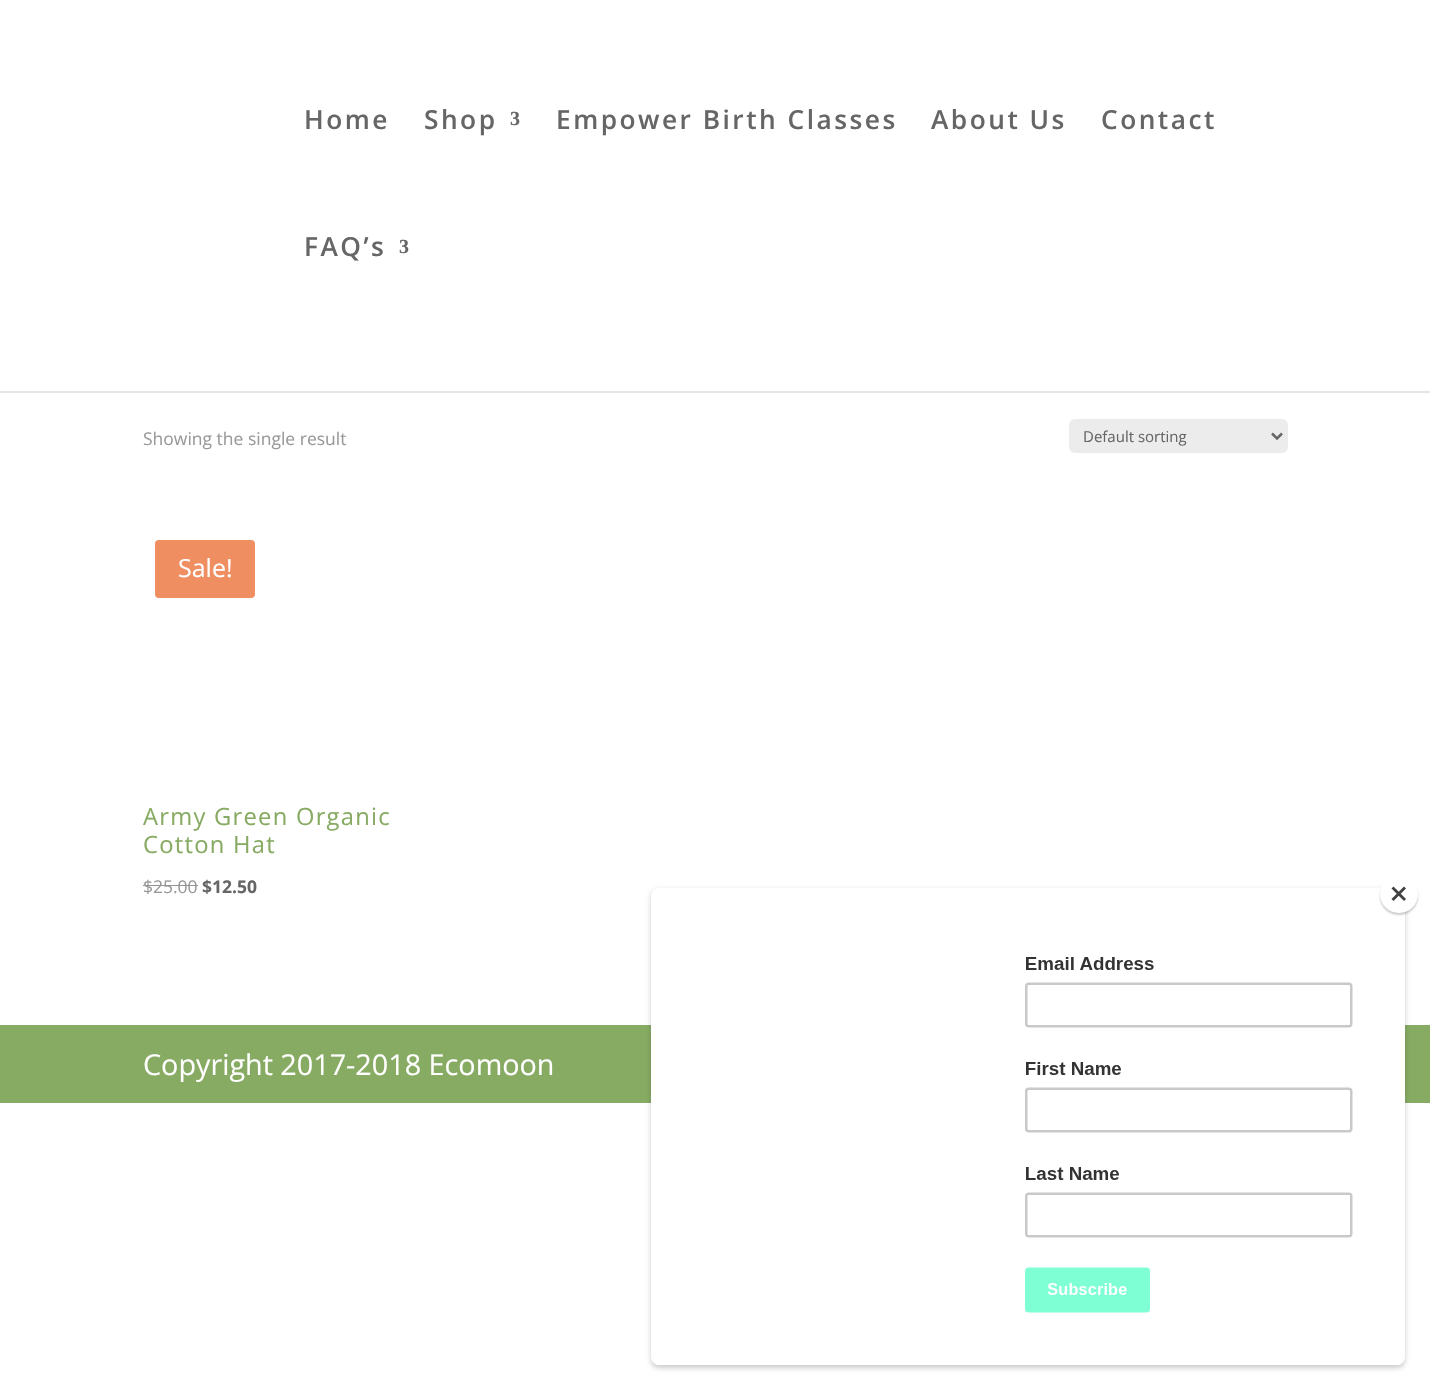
void draw(SkCanvas* canvas) {
	SkPaint fill;
	fill.setAntiAlias(true);
	auto makeFont = [&](const char* family, int weight, float size, bool italic = false) {
		SkFontStyle style(weight, SkFontStyle::kNormal_Width,
			italic ? SkFontStyle::kItalic_Slant : SkFontStyle::kUpright_Slant);
		SkFont result(fontMgr->matchFamilyStyle(family, style), size);
		result.setSubpixel(true);
		return result;
	};
	auto text = [&](const char* s, float x, float y, const SkFont& font) {
		canvas->drawString(s, x, y, font, fill);
	};
	auto spacedText = [&](const char* s, float x, float y, const SkFont& font, const SkPaint& ink, float letter, float word) {
		std::vector<SkGlyphID> glyphs(font.countText(s, strlen(s), SkTextEncoding::kUTF8));
		std::vector<float> xs(glyphs.size());
		font.textToGlyphs(s, strlen(s), SkTextEncoding::kUTF8, glyphs);
		font.getXPos(glyphs, xs, x);
		float extra = 0;
		for (size_t i = 0; i < glyphs.size(); i++) {
			xs[i] += extra;
			extra += letter + word * (glyphs[i] == font.unicharToGlyph(' '));
		}
		canvas->drawTextBlob(SkTextBlob::MakeFromPosHGlyphs(glyphs, xs, y, font), 0, 0, ink);
	};
	auto box = [&](float l, float t, float r, float b) {
		canvas->drawRect(SkRect::MakeLTRB(l, t, r, b), fill);
	};
	auto roundBox = [&](float l, float t, float r, float b, float radius) {
		canvas->drawRoundRect(SkRect::MakeLTRB(l, t, r, b), radius, radius, fill);
	};
	auto picture = [&](const char* path, float l, float t, float r, float b) {
		auto image = SkImages::DeferredFromEncodedData(SkData::MakeFromFileName(path));
		canvas->drawImageRect(image, SkRect::MakeLTRB(l, t, r, b), SkSamplingOptions());
	};
	canvas->clear(0xFFFFFFFF);
	fill.setColor(0x1A000000);
	box(0, 391, 1430, 393);
	fill.setColor(0xFFECECEC);
	roundBox(1069, 419, 1288, 453, 6);
	fill.setStyle(SkPaint::kStroke_Style);
	fill.setStrokeWidth(2.5f);
	fill.setColor(0xFF666666);
	canvas->drawPath(SkPathBuilder().moveTo(1272, 433.5f).lineTo(1277, 438.5f).lineTo(1282, 433.5f).detach(), fill);
	fill.setStyle(SkPaint::kFill_Style);
	fill.setColor(0xFFEF8F61);
	roundBox(155, 540, 255, 598, 4);
	fill.setColor(0xFF87AB63);
	box(0, 1025, 1430, 1103);
	fill.setColor(0x33000000);
	fill.setMaskFilter(SkMaskFilter::MakeBlur(kNormal_SkBlurStyle, 2.5f));
	canvas->drawRoundRect(SkRect::MakeLTRB(651, 890, 1405, 1368), 8, 8, fill);
	fill.setMaskFilter(nullptr);
	fill.setColor(0xFFFFFFFF);
	roundBox(651, 888, 1405, 1365, 8);
	fill.setColor(0x33000000);
	fill.setMaskFilter(SkMaskFilter::MakeBlur(kNormal_SkBlurStyle, 1));
	canvas->drawRoundRect(SkRect::MakeLTRB(1380, 878, 1418, 915), 18.5f, 18.5f, fill);
	fill.setMaskFilter(nullptr);
	fill.setColor(0xFFFFFFFF);
	canvas->drawCircle(1399, 894, 19, fill);
	fill.setColor(0xFF414141);
	canvas->drawPath(SkPathBuilder().moveTo(1404, 886.5f).lineTo(1406, 888.5f).lineTo(1393.5f, 901).lineTo(1391.5f, 899).close().detach(), fill);
	canvas->drawPath(SkPathBuilder().moveTo(1391.5f, 888.5f).lineTo(1393.5f, 886.5f).lineTo(1406, 899).lineTo(1404, 901).close().detach(), fill);
	picture("image0.png", 655, 957, 1401, 1365);
	auto font1 = makeFont("Open Sans", 600, 26.25f);
	fill.setColor(0xFF666666);
	spacedText("Home", 304, 129, font1, fill, 2.5f, 0);
	spacedText("Shop", 424, 129, font1, fill, 2.5f, 0);
	auto font2 = makeFont("Liberation Serif", 700, 20);
	spacedText("3", 510, 125, font2, fill, 2.5f, 0);
	spacedText("Empower Birth Classes", 556, 129, font1, fill, 2.5f, 0);
	spacedText("About Us", 931, 129, font1, fill, 2.5f, 0);
	spacedText("Contact", 1101, 129, font1, fill, 2.5f, 0);
	spacedText("FAQ’s", 304, 256, font1, fill, 2.5f, 0);
	spacedText("3", 399, 253, font2, fill, 2.5f, 0);
	auto font3 = makeFont("Open Sans", 400, 17.5f);
	fill.setColor(0xFF999999);
	text("Showing the single result", 143, 445, font3);
	auto font4 = makeFont("Open Sans", 400, 15);
	fill.setColor(0xFF666666);
	text("Default sorting", 1083, 442, font4);
	auto font5 = makeFont("Open Sans", 400, 25);
	fill.setColor(0xFFFFFFFF);
	text("Sale!", 178, 577, font5);
	auto font6 = makeFont("Open Sans", 400, 23.75f);
	fill.setColor(0xFF87AB63);
	spacedText("Army Green Organic", 143, 825, font6, fill, 1.25f, 0);
	spacedText("Cotton Hat", 143, 853, font6, fill, 1.25f, 0);
	fill.setColor(0xFF999999);
	text("$25.00", 143, 893, font3);
	fill.setColor(0xFF949494);
	box(143, 885, 198, 886);
	auto font7 = makeFont("Open Sans", 700, 17.5f);
	fill.setColor(0xFF666666);
	text("$12.50", 202, 893, font7);
	auto font8 = makeFont("Open Sans", 400, 28.75f);
	fill.setColor(0xFFFFFFFF);
	text("Copyright 2017-2018 Ecomoon", 143, 1075, font8);
}
